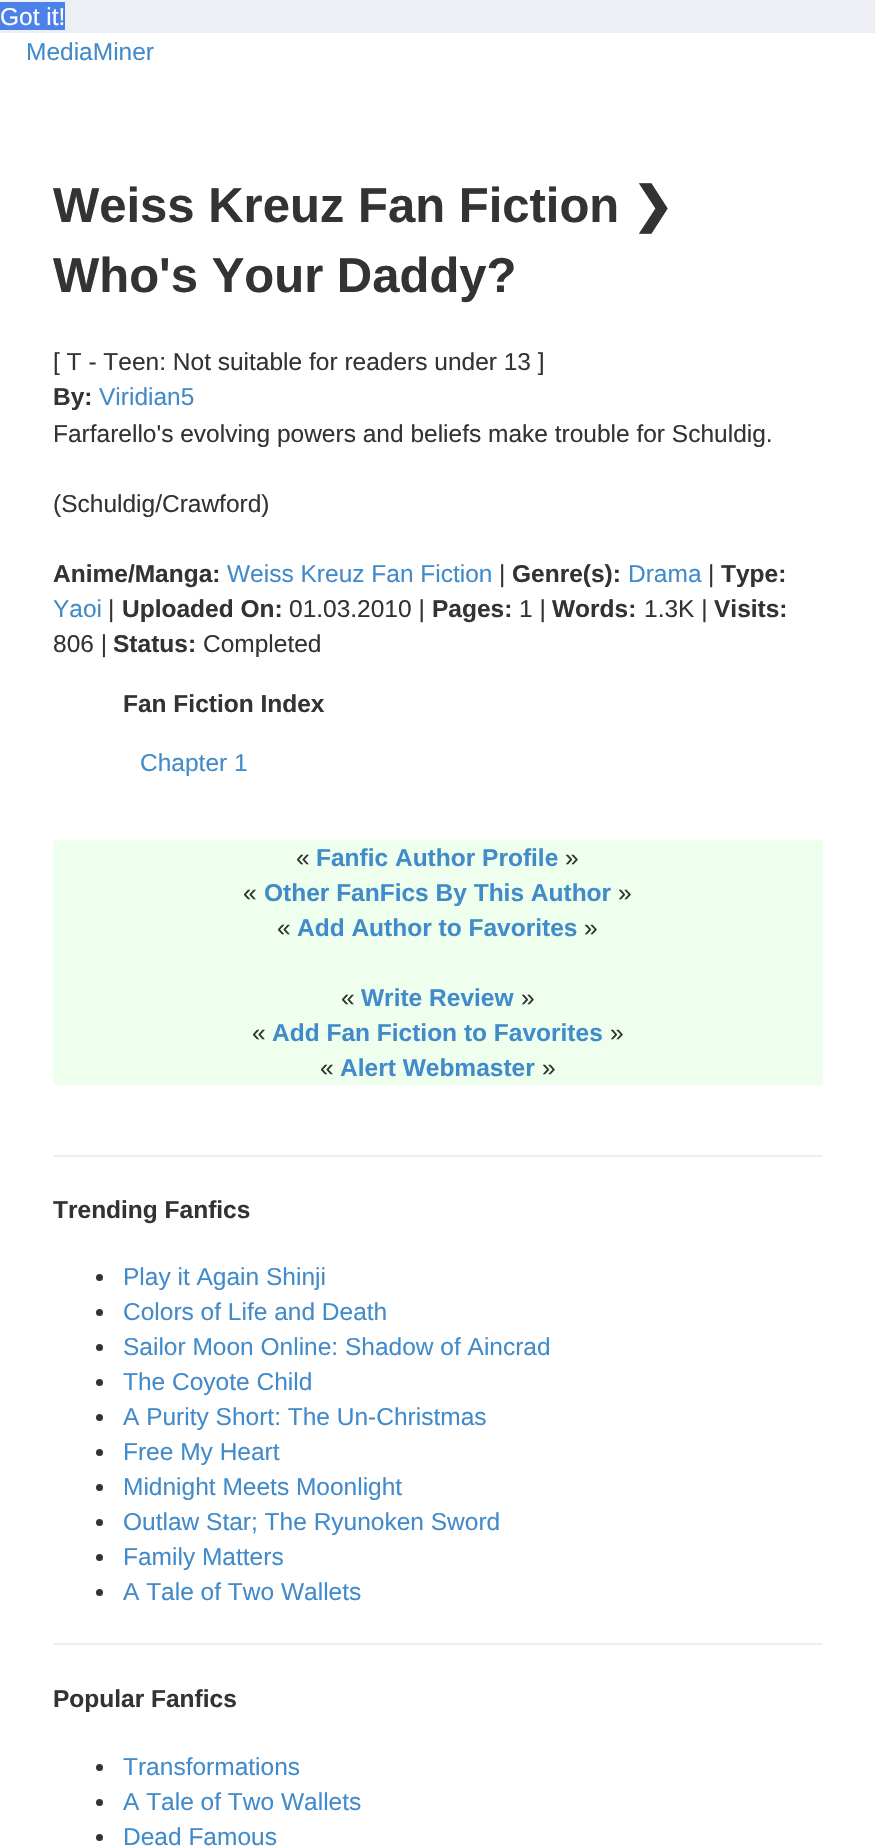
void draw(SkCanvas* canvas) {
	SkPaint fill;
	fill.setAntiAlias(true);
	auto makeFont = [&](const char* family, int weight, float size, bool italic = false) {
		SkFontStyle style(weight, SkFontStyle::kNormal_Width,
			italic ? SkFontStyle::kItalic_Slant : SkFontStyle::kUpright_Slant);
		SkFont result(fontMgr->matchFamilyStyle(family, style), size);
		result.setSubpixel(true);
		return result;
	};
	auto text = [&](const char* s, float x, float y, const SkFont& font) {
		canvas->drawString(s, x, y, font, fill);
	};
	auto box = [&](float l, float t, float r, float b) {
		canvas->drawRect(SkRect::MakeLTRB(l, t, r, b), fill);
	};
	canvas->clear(0xFFFFFFFF);
	fill.setColor(0xFFEDEFF5);
	box(0, 0, 875, 33);
	fill.setColor(0xFF4B81E8);
	box(0, 2, 65, 30);
	fill.setColor(0xFFEEFFEE);
	box(53, 840, 823, 1085);
	fill.setColor(0xFFEEEEEE);
	box(53, 1155, 823, 1157);
	fill.setColor(0xFF333333);
	canvas->drawCircle(99.5f, 1277.5f, 3.5f, fill);
	canvas->drawCircle(99.5f, 1312.5f, 3.5f, fill);
	canvas->drawCircle(99.5f, 1347.5f, 3.5f, fill);
	canvas->drawCircle(99.5f, 1382.5f, 3.5f, fill);
	canvas->drawCircle(99.5f, 1417.5f, 3.5f, fill);
	canvas->drawCircle(99.5f, 1452.5f, 3.5f, fill);
	canvas->drawCircle(99.5f, 1487.5f, 3.5f, fill);
	canvas->drawCircle(99.5f, 1522.5f, 3.5f, fill);
	canvas->drawCircle(99.5f, 1557.5f, 3.5f, fill);
	canvas->drawCircle(99.5f, 1592.5f, 3.5f, fill);
	fill.setColor(0xFFEEEEEE);
	box(53, 1643, 823, 1645);
	fill.setColor(0xFF333333);
	canvas->drawCircle(99.5f, 1767.5f, 3.5f, fill);
	canvas->drawCircle(99.5f, 1802.5f, 3.5f, fill);
	canvas->drawCircle(99.5f, 1837.5f, 3.5f, fill);
	auto font1 = makeFont("Liberation Sans", 400, 24.5f);
	fill.setColor(0xFFFFFFFF);
	text("Got it!", 0, 25, font1);
	fill.setColor(0xFF428BCA);
	text("MediaMiner", 26, 60, font1);
	auto font2 = makeFont("Liberation Sans", 700, 49);
	fill.setColor(0xFF333333);
	text("Weiss Kreuz Fan Fiction", 53, 222, font2);
	auto font3 = makeFont("DejaVu Sans", 700, 49);
	text("❯", 632, 222, font3);
	text("Who's Your Daddy?", 53, 292, font2);
	text("[ T - Teen: Not suitable for readers under 13 ]", 53, 370, font1);
	auto font4 = makeFont("Liberation Sans", 700, 24.5f);
	text("By:", 53, 405, font4);
	fill.setColor(0xFF428BCA);
	text("Viridian5", 99, 405, font1);
	fill.setColor(0xFF333333);
	text("Farfarello's evolving powers and beliefs make trouble for Schuldig.", 53, 442, font1);
	text("(Schuldig/Crawford)", 53, 512, font1);
	text("Anime/Manga:", 53, 582, font4);
	fill.setColor(0xFF428BCA);
	text("Weiss Kreuz Fan Fiction", 227, 582, font1);
	fill.setColor(0xFF333333);
	text("|", 499, 582, font1);
	text("Genre(s):", 512, 582, font4);
	fill.setColor(0xFF428BCA);
	text("Drama", 628, 582, font1);
	fill.setColor(0xFF333333);
	text("|", 708, 582, font1);
	text("Type:", 721, 582, font4);
	fill.setColor(0xFF428BCA);
	text("Yaoi", 53, 617, font1);
	fill.setColor(0xFF333333);
	text("|", 108, 617, font1);
	text("Uploaded On:", 122, 617, font4);
	text("01.03.2010 |", 289, 617, font1);
	text("Pages:", 432, 617, font4);
	text("1 |", 519, 617, font1);
	text("Words:", 552, 617, font4);
	text("1.3K |", 644, 617, font1);
	text("Visits:", 714, 617, font4);
	text("806 |", 53, 652, font1);
	text("Status:", 113, 652, font4);
	text("Completed", 203, 652, font1);
	text("Fan Fiction Index", 123, 712, font4);
	fill.setColor(0xFF428BCA);
	text("Chapter 1", 140, 771, font1);
	fill.setColor(0xFF333333);
	text("«", 296, 866, font1);
	fill.setColor(0xFF428BCA);
	text("Fanfic Author Profile", 316, 866, font4);
	fill.setColor(0xFF333333);
	text("»", 565, 866, font1);
	text("«", 243, 901, font1);
	fill.setColor(0xFF428BCA);
	text("Other FanFics By This Author", 264, 901, font4);
	fill.setColor(0xFF333333);
	text("»", 618, 901, font1);
	text("«", 277, 936, font1);
	fill.setColor(0xFF428BCA);
	text("Add Author to Favorites", 297, 936, font4);
	fill.setColor(0xFF333333);
	text("»", 584, 936, font1);
	text("«", 341, 1006, font1);
	fill.setColor(0xFF428BCA);
	text("Write Review", 361, 1006, font4);
	fill.setColor(0xFF333333);
	text("»", 521, 1006, font1);
	text("«", 252, 1041, font1);
	fill.setColor(0xFF428BCA);
	text("Add Fan Fiction to Favorites", 272, 1041, font4);
	fill.setColor(0xFF333333);
	text("»", 610, 1041, font1);
	text("«", 320, 1076, font1);
	fill.setColor(0xFF428BCA);
	text("Alert Webmaster", 340, 1076, font4);
	fill.setColor(0xFF333333);
	text("»", 542, 1076, font1);
	text("Trending Fanfics", 53, 1218, font4);
	fill.setColor(0xFF428BCA);
	text("Play it Again Shinji", 123, 1285, font1);
	text("Colors of Life and Death", 123, 1320, font1);
	text("Sailor Moon Online: Shadow of Aincrad", 123, 1355, font1);
	text("The Coyote Child", 123, 1390, font1);
	text("A Purity Short: The Un-Christmas", 123, 1425, font1);
	text("Free My Heart", 123, 1460, font1);
	text("Midnight Meets Moonlight", 123, 1495, font1);
	text("Outlaw Star; The Ryunoken Sword", 123, 1530, font1);
	text("Family Matters", 123, 1565, font1);
	text("A Tale of Two Wallets", 123, 1600, font1);
	fill.setColor(0xFF333333);
	text("Popular Fanfics", 53, 1707, font4);
	fill.setColor(0xFF428BCA);
	text("Transformations", 123, 1775, font1);
	text("A Tale of Two Wallets", 123, 1810, font1);
	text("Dead Famous", 123, 1845, font1);
}
